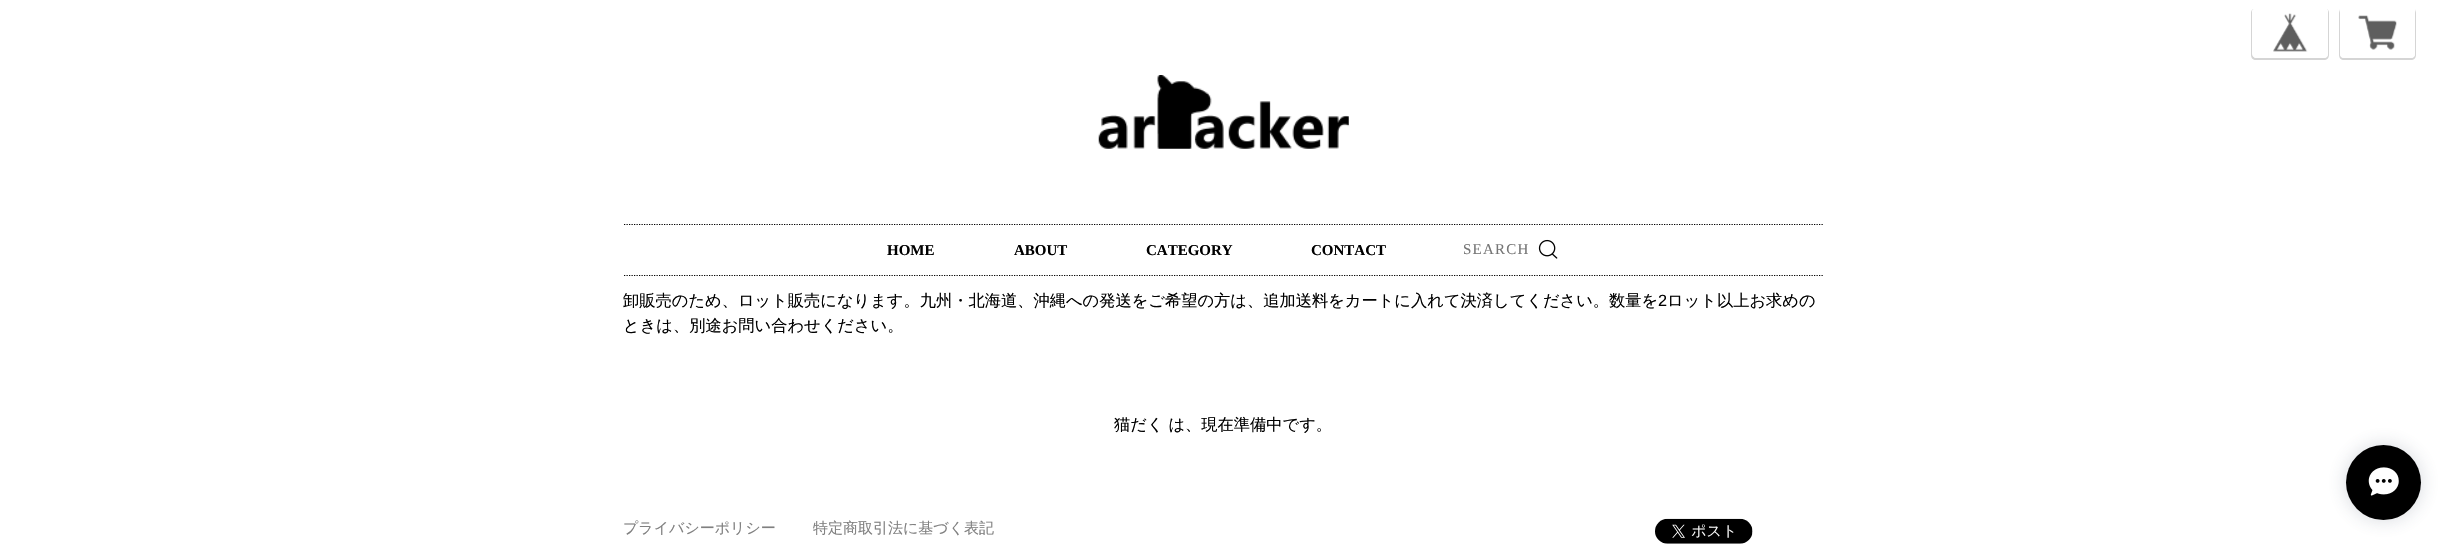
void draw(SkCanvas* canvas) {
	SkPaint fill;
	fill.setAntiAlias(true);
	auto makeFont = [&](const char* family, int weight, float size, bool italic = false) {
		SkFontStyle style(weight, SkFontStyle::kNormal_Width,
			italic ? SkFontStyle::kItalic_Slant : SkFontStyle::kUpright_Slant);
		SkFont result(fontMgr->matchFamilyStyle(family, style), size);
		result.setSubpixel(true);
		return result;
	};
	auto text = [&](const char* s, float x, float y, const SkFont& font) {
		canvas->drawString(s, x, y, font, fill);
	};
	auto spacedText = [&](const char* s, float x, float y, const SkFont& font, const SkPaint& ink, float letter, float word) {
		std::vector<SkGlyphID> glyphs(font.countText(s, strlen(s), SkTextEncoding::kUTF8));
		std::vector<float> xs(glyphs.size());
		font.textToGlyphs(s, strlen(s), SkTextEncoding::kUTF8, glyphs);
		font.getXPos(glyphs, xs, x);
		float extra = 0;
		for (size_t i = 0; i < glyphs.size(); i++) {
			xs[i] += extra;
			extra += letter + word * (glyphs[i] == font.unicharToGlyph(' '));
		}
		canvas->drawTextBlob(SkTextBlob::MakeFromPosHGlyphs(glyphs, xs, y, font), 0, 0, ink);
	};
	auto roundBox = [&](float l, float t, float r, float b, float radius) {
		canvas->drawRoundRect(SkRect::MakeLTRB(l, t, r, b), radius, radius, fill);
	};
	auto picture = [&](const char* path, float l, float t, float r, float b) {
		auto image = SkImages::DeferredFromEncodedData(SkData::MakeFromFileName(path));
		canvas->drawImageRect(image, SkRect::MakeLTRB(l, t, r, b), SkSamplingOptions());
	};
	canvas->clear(0xFFFFFFFF);
	fill.setColor(0xFFD5D5D5);
	canvas->drawPath(SkPathBuilder().moveTo(2254, 9).cubicTo(2252, 9, 2251, 11, 2251, 13).lineTo(2251, 55).cubicTo(2251, 58, 2253, 60, 2256, 60).lineTo(2324, 60).cubicTo(2327, 60, 2329, 58, 2329, 55).lineTo(2329, 13).cubicTo(2329, 11, 2328, 9, 2326, 9).cubicTo(2327, 9, 2328, 10, 2328, 11).lineTo(2328, 54).cubicTo(2328, 56, 2326, 58, 2324, 58).lineTo(2256, 58).cubicTo(2254, 58, 2252, 56, 2252, 54).lineTo(2252, 11).cubicTo(2252, 10, 2253, 9, 2254, 9).close().detach(), fill);
	fill.setColor(0xFFFFFFFF);
	roundBox(2253, 8, 2328, 58, 4);
	picture("image0.png", 2273, 13, 2308, 52);
	fill.setColor(0xFFD5D5D5);
	canvas->drawPath(SkPathBuilder().moveTo(2340, 9).cubicTo(2340, 10, 2339, 12, 2339, 13).lineTo(2339, 55).cubicTo(2339, 58, 2341, 60, 2344, 60).lineTo(2411, 60).cubicTo(2414, 60, 2416, 58, 2416, 55).lineTo(2416, 13).cubicTo(2416, 12, 2415, 10, 2415, 9).lineTo(2415, 11).lineTo(2415, 54).cubicTo(2415, 56, 2413, 58, 2411, 58).lineTo(2344, 58).cubicTo(2342, 58, 2340, 56, 2340, 54).lineTo(2340, 11).close().detach(), fill);
	fill.setColor(0xFFFFFFFF);
	roundBox(2340, 8, 2415, 58, 4);
	picture("image1.png", 2358, 15, 2397, 50);
	picture("image2.png", 1098, 75, 1349, 149);
	fill.setStyle(SkPaint::kStroke_Style);
	fill.setStrokeWidth(1.2f);
	fill.setColor(0xFF000000);
	fill.setPathEffect(SkDashPathEffect::Make({{1.25f, 1.25f}}, 0));
	canvas->drawPath(SkPathBuilder().moveTo(624, 224.5f).lineTo(1824, 224.5f).detach(), fill);
	fill.setPathEffect(nullptr);
	fill.setPathEffect(SkDashPathEffect::Make({{1.25f, 1.25f}}, 0));
	canvas->drawPath(SkPathBuilder().moveTo(624, 275.5f).lineTo(1824, 275.5f).detach(), fill);
	fill.setPathEffect(nullptr);
	picture("image3.png", 1538, 239, 1558, 259);
	fill.setStyle(SkPaint::kFill_Style);
	fill.setColor(0x33334258);
	fill.setMaskFilter(SkMaskFilter::MakeBlur(kNormal_SkBlurStyle, 9.5f));
	canvas->drawRoundRect(SkRect::MakeLTRB(2346, 445, 2421, 520), 37.5f, 37.5f, fill);
	fill.setMaskFilter(nullptr);
	fill.setColor(0xFF000000);
	canvas->drawCircle(2383.5f, 482.5f, 37.5f, fill);
	picture("image4.png", 2368, 467, 2399, 496);
	picture("image5.png", 1655, 518, 1753, 544);
	auto font1 = makeFont("Liberation Serif", 700, 15);
	text("HOME", 887, 255, font1);
	text("ABOUT", 1014, 255, font1);
	text("CATEGORY", 1146, 255, font1);
	text("CONTACT", 1311, 255, font1);
	auto font2 = makeFont("Liberation Serif", 400, 15);
	fill.setColor(0xFF757575);
	spacedText("SEARCH", 1463, 254, font2, fill, 1.25f, 0);
	auto font3 = makeFont("WenQuanYi Zen Hei", 500, 16.25f);
	fill.setColor(0xFF000000);
	text("卸販売のため、ロット販売になります。九州・北海道、沖縄への発送をご希望の方は、追加送料をカートに入れて決済してください。数量を", 623, 306, font3);
	auto font4 = makeFont("Liberation Sans", 400, 16.25f);
	text("2", 1658, 306, font4);
	text("ロット以上お求めの", 1667, 306, font3);
	text("ときは、別途お問い合わせください。", 623, 331, font3);
	text("猫だく は、現在準備中です。", 1114, 430, font3);
	auto font5 = makeFont("WenQuanYi Zen Hei", 500, 15);
	fill.setColor(0xFF808080);
	text("プライバシーポリシー", 623, 533, font5);
	text("特定商取引法に基づく表記", 813, 533, font5);
}
